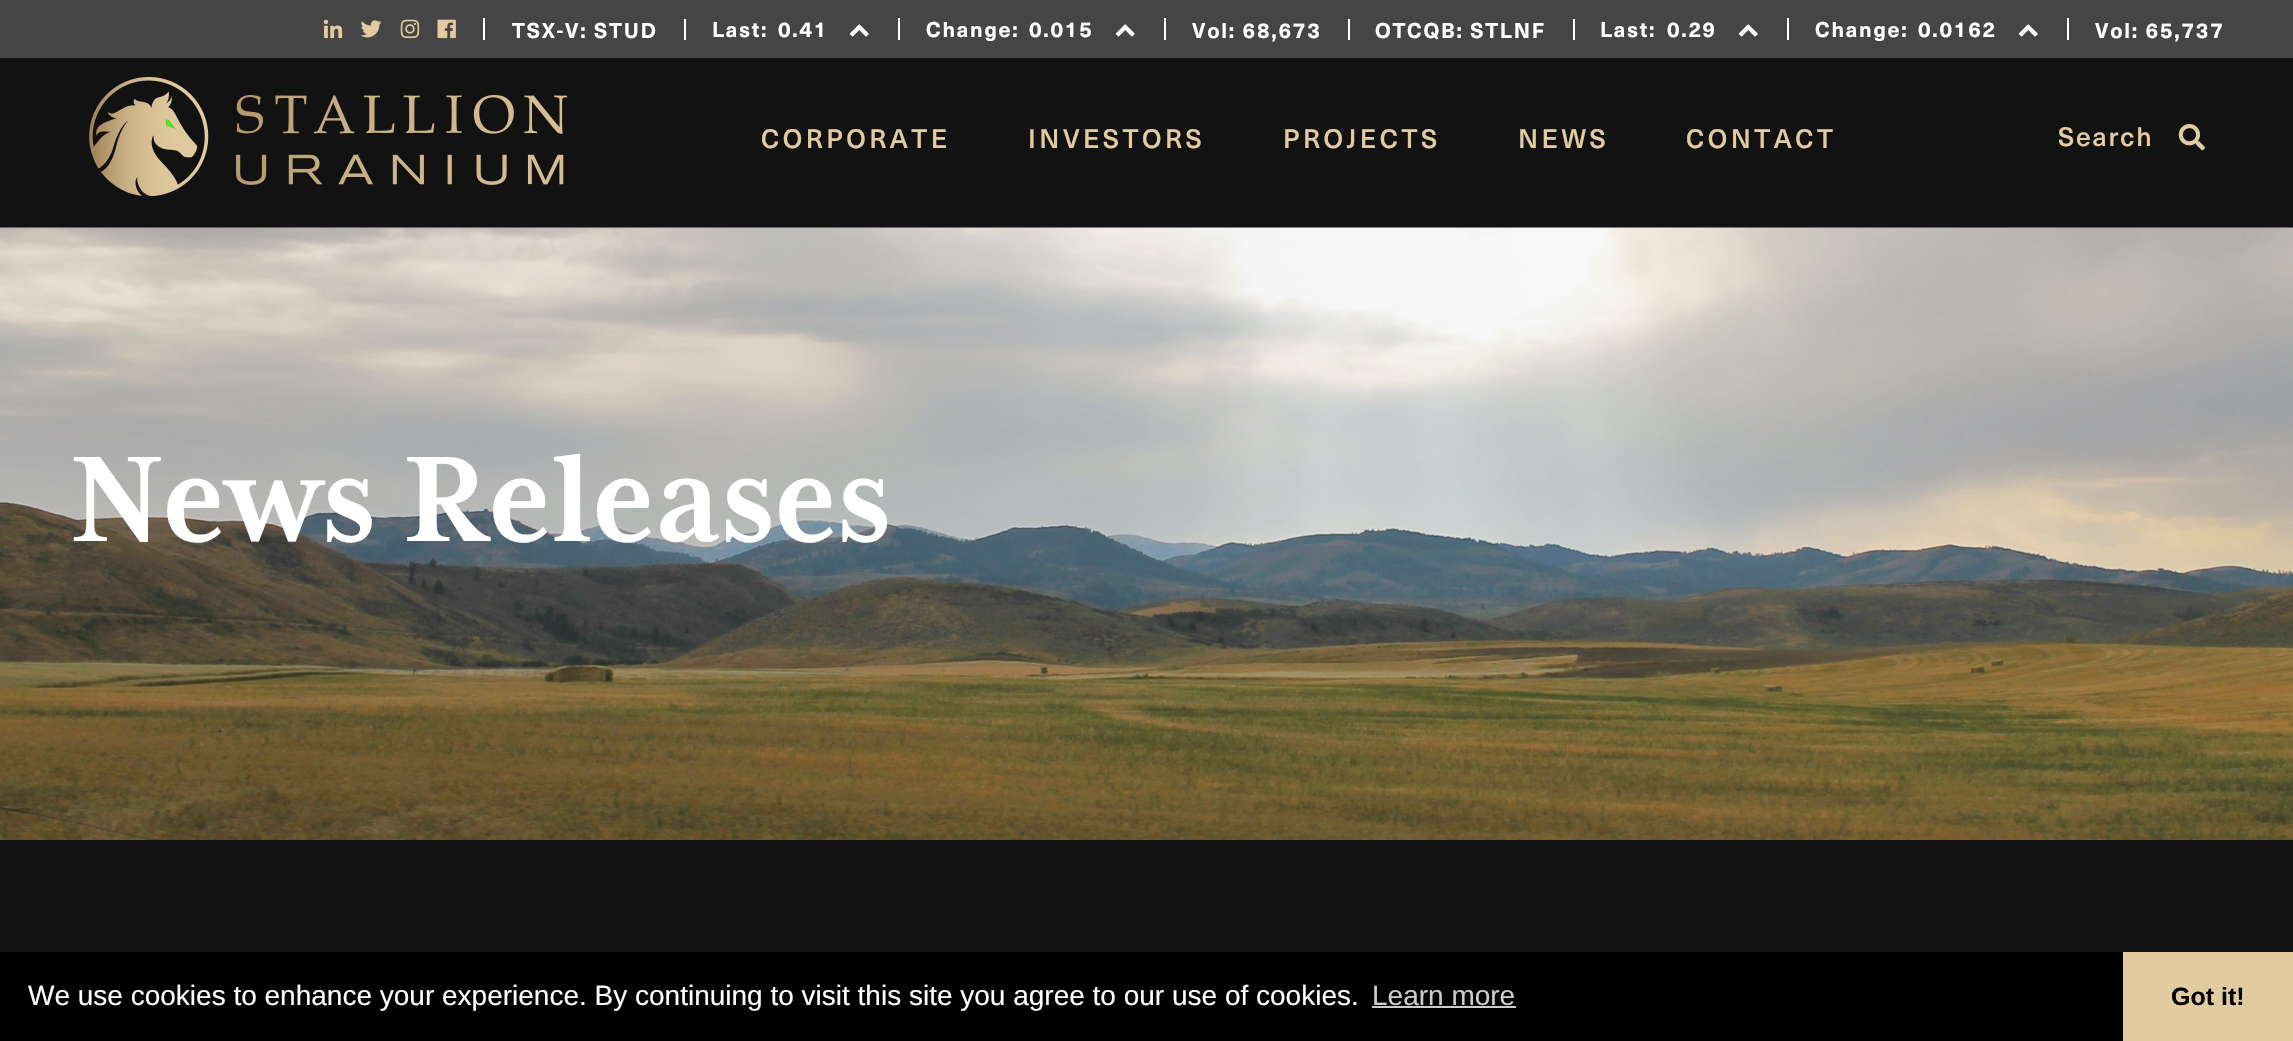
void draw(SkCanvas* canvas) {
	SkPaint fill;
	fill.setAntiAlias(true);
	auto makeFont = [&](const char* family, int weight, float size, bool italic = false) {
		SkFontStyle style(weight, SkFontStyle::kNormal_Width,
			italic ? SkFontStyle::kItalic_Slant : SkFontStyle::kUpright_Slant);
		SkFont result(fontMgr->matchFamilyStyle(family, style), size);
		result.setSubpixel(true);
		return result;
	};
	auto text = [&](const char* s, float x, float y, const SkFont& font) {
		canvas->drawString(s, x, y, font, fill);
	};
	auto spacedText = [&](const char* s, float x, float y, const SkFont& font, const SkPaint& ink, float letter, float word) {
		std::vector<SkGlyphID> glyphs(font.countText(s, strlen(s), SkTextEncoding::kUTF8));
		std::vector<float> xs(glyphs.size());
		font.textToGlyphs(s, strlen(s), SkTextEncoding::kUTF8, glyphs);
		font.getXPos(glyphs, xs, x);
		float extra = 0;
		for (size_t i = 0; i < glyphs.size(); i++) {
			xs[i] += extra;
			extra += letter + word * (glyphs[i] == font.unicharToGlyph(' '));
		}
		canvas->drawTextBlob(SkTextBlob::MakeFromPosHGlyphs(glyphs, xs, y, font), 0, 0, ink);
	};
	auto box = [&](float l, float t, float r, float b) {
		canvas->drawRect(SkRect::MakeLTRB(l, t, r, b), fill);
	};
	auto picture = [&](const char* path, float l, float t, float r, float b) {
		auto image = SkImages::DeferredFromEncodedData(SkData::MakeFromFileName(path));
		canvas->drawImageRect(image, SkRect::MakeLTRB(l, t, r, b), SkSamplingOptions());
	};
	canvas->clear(0xFF121212);
	fill.setColor(0xFF454545);
	box(0, 0, 2293, 58);
	fill.setColor(0xFFFFFFFF);
	box(483, 18, 485, 40);
	picture("image0.png", 323, 19, 343, 39);
	picture("image1.png", 360, 20, 382, 38);
	picture("image2.png", 400, 19, 420, 39);
	picture("image3.png", 437, 19, 456, 39);
	box(684, 19, 686, 40);
	box(898, 18, 900, 40);
	picture("image4.png", 849, 24, 869, 37);
	box(1164, 18, 1166, 40);
	picture("image4.png", 1115, 24, 1135, 37);
	box(1348, 19, 1350, 40);
	box(1573, 19, 1575, 40);
	box(1787, 18, 1789, 40);
	picture("image4.png", 1738, 24, 1758, 37);
	box(2067, 18, 2069, 40);
	picture("image4.png", 2018, 24, 2038, 37);
	picture("image5.png", 89, 77, 568, 196);
	picture("image6.png", 2178, 124, 2205, 151);
	picture("image7.png", 0, 227, 2293, 840);
	fill.setColor(0xFF000000);
	box(0, 952, 2123, 1041);
	fill.setColor(0xFFCCCCCC);
	box(1372, 1006, 1516, 1008);
	fill.setColor(0xFFE2CC9F);
	box(2123, 952, 2293, 1041);
	auto font1 = makeFont("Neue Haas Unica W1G", 700, 21);
	fill.setColor(0xFFFFFFFF);
	spacedText("TSX-V: STUD", 512, 38, font1, fill, 1.75f, 0);
	spacedText("Last:", 712, 37, font1, fill, 1.75f, 0);
	spacedText("0.41", 778, 37, font1, fill, 1.75f, 0);
	spacedText("Change:", 926, 37, font1, fill, 1.75f, 0);
	spacedText("0.015", 1029, 37, font1, fill, 1.75f, 0);
	spacedText("Vol: 68,673", 1192, 38, font1, fill, 1.75f, 0);
	spacedText("OTCQB: STLNF", 1375, 38, font1, fill, 1.75f, 0);
	spacedText("Last:", 1600, 37, font1, fill, 1.75f, 0);
	spacedText("0.29", 1667, 37, font1, fill, 1.75f, 0);
	spacedText("Change:", 1815, 37, font1, fill, 1.75f, 0);
	spacedText("0.0162", 1918, 37, font1, fill, 1.75f, 0);
	spacedText("Vol: 65,737", 2095, 38, font1, fill, 1.75f, 0);
	auto font2 = makeFont("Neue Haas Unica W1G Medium", 500, 26.25f);
	fill.setColor(0xFFE2CC9F);
	spacedText("CORPORATE", 761, 148, font2, fill, 3.5f, 0);
	spacedText("INVESTORS", 1028, 148, font2, fill, 3.5f, 0);
	spacedText("PROJECTS", 1283, 148, font2, fill, 3.5f, 0);
	spacedText("NEWS", 1518, 148, font2, fill, 3.5f, 0);
	spacedText("CONTACT", 1686, 148, font2, fill, 3.5f, 0);
	spacedText("Search", 2058, 146, font2, fill, 1.75f, 0);
	auto font3 = makeFont("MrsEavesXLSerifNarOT", 700, 140);
	fill.setColor(0xFFFFFFFF);
	text("News Releases", 70, 541, font3);
	auto font4 = makeFont("Liberation Sans", 400, 28);
	text("We use cookies to enhance your experience. By continuing to visit this site you agree to our use of cookies.", 28, 1005, font4);
	fill.setColor(0xFFCCCCCC);
	text("Learn more", 1372, 1005, font4);
	auto font5 = makeFont("Liberation Sans", 700, 25);
	fill.setColor(0xFF000000);
	text("Got it!", 2171, 1005, font5);
}
